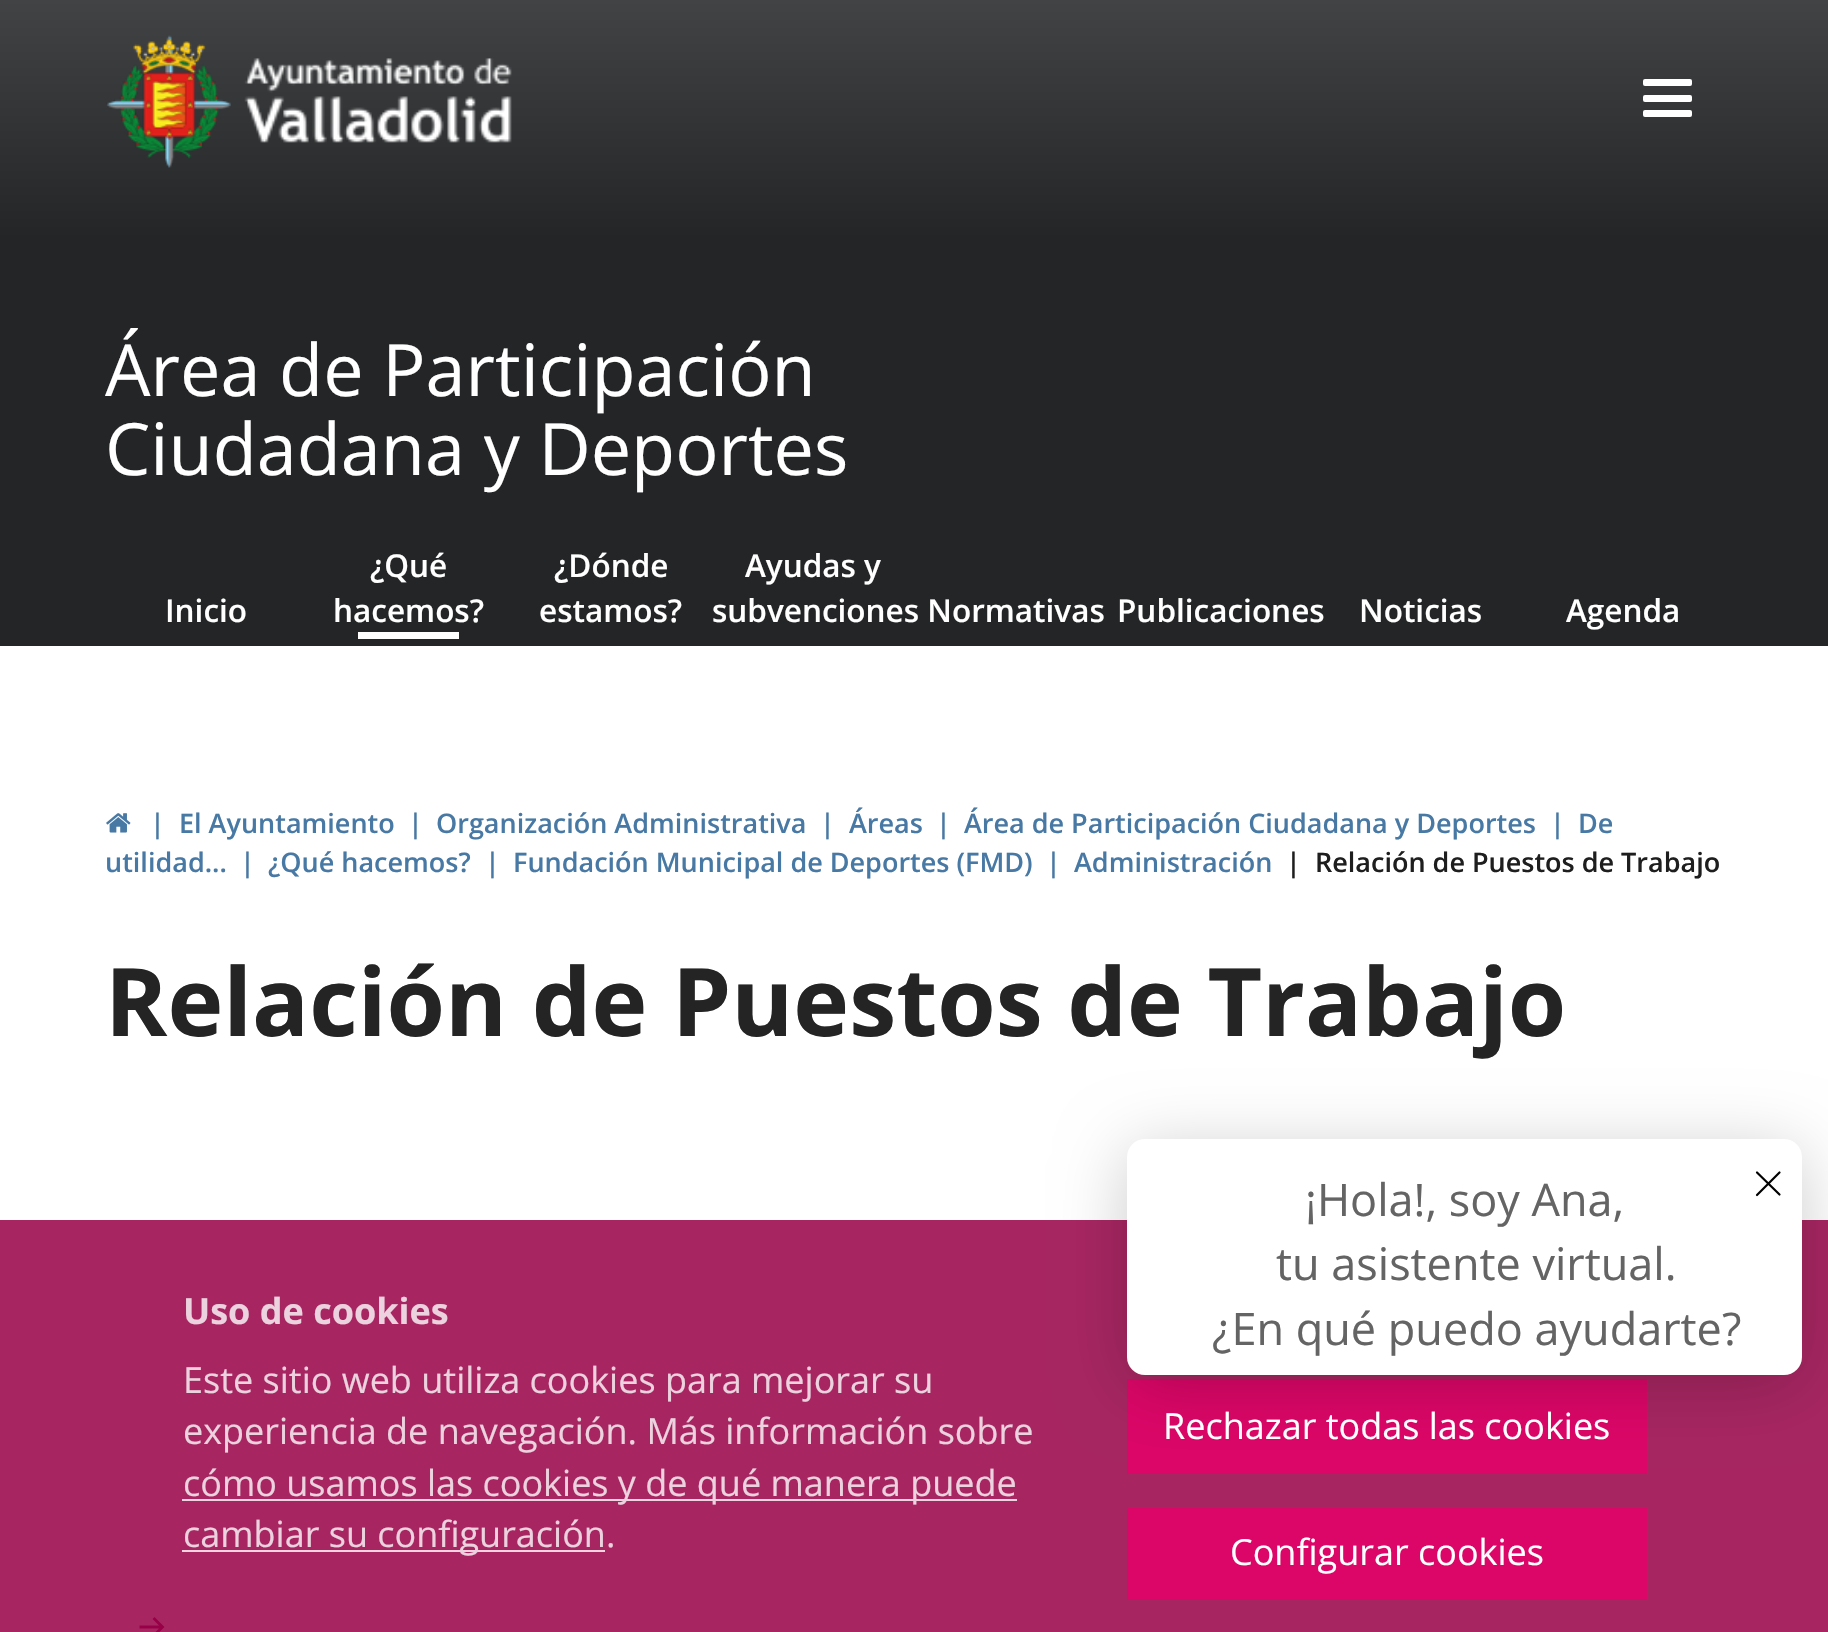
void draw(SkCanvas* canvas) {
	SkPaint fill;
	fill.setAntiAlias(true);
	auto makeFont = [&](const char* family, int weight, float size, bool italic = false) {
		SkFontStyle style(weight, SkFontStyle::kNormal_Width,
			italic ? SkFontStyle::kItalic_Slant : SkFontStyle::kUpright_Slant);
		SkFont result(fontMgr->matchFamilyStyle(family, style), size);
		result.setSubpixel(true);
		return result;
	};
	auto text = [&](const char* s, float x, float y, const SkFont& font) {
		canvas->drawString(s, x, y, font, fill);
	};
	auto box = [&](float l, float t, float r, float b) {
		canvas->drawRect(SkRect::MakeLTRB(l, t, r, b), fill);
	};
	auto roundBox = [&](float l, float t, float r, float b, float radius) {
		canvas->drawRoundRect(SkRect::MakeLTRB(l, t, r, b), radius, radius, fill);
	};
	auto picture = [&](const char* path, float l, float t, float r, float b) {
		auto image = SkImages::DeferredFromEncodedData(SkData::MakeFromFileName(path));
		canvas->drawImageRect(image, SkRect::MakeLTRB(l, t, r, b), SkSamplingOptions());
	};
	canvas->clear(0xFFFFFFFF);
	{
		const SkColor colors[] = {0xFF232526, 0xFF414345};
		const float stops[] = {0, 1};
		const SkPoint ends[] = {{915, 239}, {915, 0}};
		fill.setShader(SkGradientShader::MakeLinear(ends, colors, stops, 2, SkTileMode::kClamp));
		fill.setAlpha(255);
	}
	box(0, 0, 1828, 239);
	picture("image0.png", 106, 35, 231, 168);
	picture("image1.png", 244, 58, 512, 143);
	fill.setShader(nullptr);
	fill.setColor(0xFFFFFFFF);
	roundBox(1643, 79, 1692, 86, 2);
	roundBox(1643, 95, 1692, 102, 2);
	roundBox(1643, 110, 1692, 117, 2);
	fill.setColor(0xFF232526);
	box(0, 239, 1828, 646);
	fill.setColor(0xFFFFFFFF);
	box(358, 632, 459, 639);
	picture("image2.png", 106, 813, 131, 833);
	fill.setColor(0xFF980046);
	canvas->drawPath(SkPathBuilder().moveTo(139.5f, 1628.5f).lineTo(159, 1628.5f).lineTo(152.5f, 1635).lineTo(154.5f, 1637).lineTo(164.5f, 1627).lineTo(154.5f, 1617).lineTo(152.5f, 1619).lineTo(159, 1625.5f).lineTo(139.5f, 1625.5f).close().detach(), fill);
	fill.setColor(0xD9980046);
	box(0, 1220, 1828, 1632);
	fill.setColor(0xD9E50069);
	box(1127, 1379, 1647, 1474);
	fill.setColor(0x33000000);
	fill.setMaskFilter(SkMaskFilter::MakeBlur(kNormal_SkBlurStyle, 34));
	canvas->drawRoundRect(SkRect::MakeLTRB(1127, 1150, 1802, 1386), 18, 18, fill);
	fill.setMaskFilter(nullptr);
	fill.setColor(0xFFFFFFFF);
	roundBox(1127, 1139, 1802, 1375, 18);
	fill.setStyle(SkPaint::kStroke_Style);
	fill.setStrokeWidth(2.2f);
	fill.setStrokeCap(SkPaint::kRound_Cap);
	fill.setStrokeJoin(SkPaint::kRound_Join);
	fill.setColor(0xFF000000);
	canvas->drawPath(SkPathBuilder().moveTo(1757, 1195).lineTo(1779.5f, 1172.5f).moveTo(1757, 1172.5f).lineTo(1779.5f, 1194.5f).detach(), fill);
	fill.setStyle(SkPaint::kFill_Style);
	fill.setColor(0xFFEDD4E0);
	box(182, 1499, 1017, 1501);
	fill.setColor(0xCCFFFFFF);
	box(182, 1550, 605, 1552);
	fill.setColor(0xFFDC0668);
	box(1127, 1508, 1647, 1600);
	auto font1 = makeFont("Open Sans", 400, 72);
	fill.setColor(0xFFFFFFFF);
	text("Área de Participación", 105, 396, font1);
	text("Ciudadana y Deportes", 105, 475, font1);
	auto font2 = makeFont("Open Sans", 600, 31.5f);
	text("Inicio", 165, 622, font2);
	text("¿Qué", 370, 577, font2);
	text("hacemos?", 333, 622, font2);
	text("¿Dónde", 554, 577, font2);
	text("estamos?", 539, 622, font2);
	text("Ayudas y", 745, 577, font2);
	text("subvenciones Normativas", 712, 622, font2);
	text("Publicaciones", 1117, 622, font2);
	text("Noticias", 1359, 622, font2);
	text("Agenda", 1566, 622, font2);
	auto font3 = makeFont("Open Sans", 600, 27);
	fill.setColor(0xFF4879A4);
	text("|", 150, 833, font3);
	text("El Ayuntamiento", 179, 833, font3);
	text("|", 408, 833, font3);
	text("Organización Administrativa", 436, 833, font3);
	text("|", 820, 833, font3);
	text("Áreas", 849, 833, font3);
	text("|", 936, 833, font3);
	text("Área de Participación Ciudadana y Deportes", 964, 833, font3);
	text("|", 1550, 833, font3);
	text("De", 1578, 833, font3);
	text("utilidad...", 105, 872, font3);
	text("|", 240, 872, font3);
	text("¿Qué hacemos?", 268, 872, font3);
	text("|", 485, 872, font3);
	text("Fundación Municipal de Deportes (FMD)", 513, 872, font3);
	text("|", 1046, 872, font3);
	text("Administración", 1074, 872, font3);
	fill.setColor(0xFF1E1E1E);
	text("|", 1286, 872, font3);
	text("Relación de Puestos de Trabajo", 1315, 872, font3);
	auto font4 = makeFont("Open Sans", 700, 94.5f);
	fill.setColor(0xFF242424);
	text("Relación de Puestos de Trabajo", 105, 1036, font4);
	auto font5 = makeFont("Open Sans", 400, 45);
	fill.setColor(0xFF646464);
	text("¡Hola!, soy Ana,", 1305, 1216, font5);
	text("tu asistente virtual.", 1276, 1280, font5);
	text("¿En qué puedo ayudarte?", 1212, 1345, font5);
	auto font6 = makeFont("Open Sans", 700, 36);
	fill.setColor(0xFFECD2DE);
	text("Uso de cookies", 183, 1324, font6);
	auto font7 = makeFont("Open Sans", 400, 36);
	text("Este sitio web utiliza cookies para mejorar su", 183, 1393, font7);
	text("experiencia de navegación. Más información sobre", 183, 1444, font7);
	text("cómo usamos las cookies y de qué manera puede", 183, 1496, font7);
	text("cambiar su configuración.", 183, 1547, font7);
	fill.setColor(0xFFFFFFFF);
	text("Rechazar todas las cookies", 1163, 1439, font7);
	text("Configurar cookies", 1230, 1565, font7);
}
